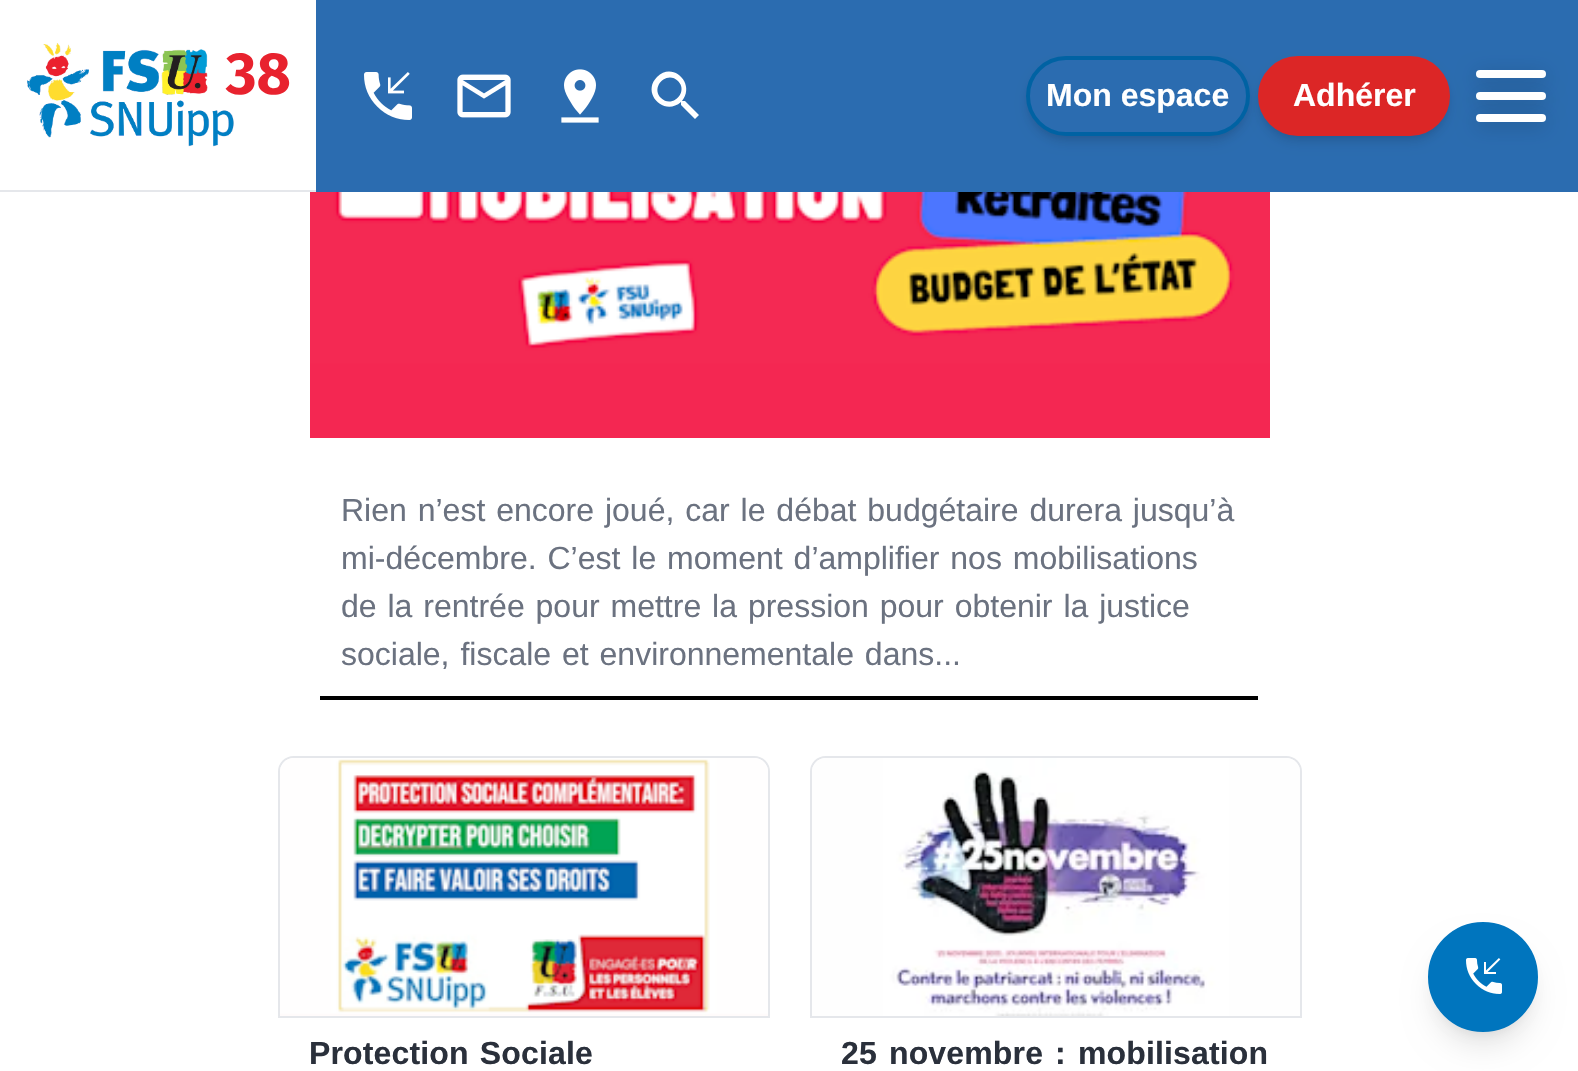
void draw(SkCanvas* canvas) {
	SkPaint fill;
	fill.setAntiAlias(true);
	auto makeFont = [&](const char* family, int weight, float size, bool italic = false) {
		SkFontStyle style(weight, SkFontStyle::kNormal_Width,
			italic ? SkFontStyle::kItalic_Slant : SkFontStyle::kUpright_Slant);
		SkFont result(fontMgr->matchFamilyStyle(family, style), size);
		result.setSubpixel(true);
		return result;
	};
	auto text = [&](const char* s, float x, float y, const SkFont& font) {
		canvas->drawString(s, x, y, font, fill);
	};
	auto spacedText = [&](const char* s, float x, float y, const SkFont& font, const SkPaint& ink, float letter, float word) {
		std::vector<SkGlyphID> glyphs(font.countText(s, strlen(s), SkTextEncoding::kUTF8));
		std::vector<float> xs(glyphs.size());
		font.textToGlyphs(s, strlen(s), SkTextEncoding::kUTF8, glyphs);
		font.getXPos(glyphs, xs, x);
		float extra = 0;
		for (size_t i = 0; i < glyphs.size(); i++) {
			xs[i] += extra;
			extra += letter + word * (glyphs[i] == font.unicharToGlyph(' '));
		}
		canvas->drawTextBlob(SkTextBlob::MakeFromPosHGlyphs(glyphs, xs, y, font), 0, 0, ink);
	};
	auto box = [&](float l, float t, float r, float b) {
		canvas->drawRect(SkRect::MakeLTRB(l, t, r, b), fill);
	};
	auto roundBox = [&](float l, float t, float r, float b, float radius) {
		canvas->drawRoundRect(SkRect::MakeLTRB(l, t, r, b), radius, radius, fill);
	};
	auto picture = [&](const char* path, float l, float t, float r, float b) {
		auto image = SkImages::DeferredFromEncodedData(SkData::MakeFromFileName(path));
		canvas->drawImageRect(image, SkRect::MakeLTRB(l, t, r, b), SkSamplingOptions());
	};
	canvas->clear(0xFFFFFFFF);
	fill.setColor(0xFF2B6CB0);
	box(316, 0, 1578, 192);
	fill.setColor(0xFFE5E7EB);
	box(0, 190, 316, 192);
	picture("image0.png", 27, 43, 290, 147);
	picture("image1.png", 364, 72, 412, 120);
	picture("image2.png", 457, 74, 511, 118);
	picture("image3.png", 561, 69, 599, 123);
	fill.setColor(0xFFFFFFFF);
	canvas->drawPath(SkPathBuilder().moveTo(661, 98).cubicTo(672, 109, 689, 92, 678, 81).cubicTo(667, 70, 650, 87, 661, 98).close().moveTo(685, 101).lineTo(699, 115).lineTo(695, 119).lineTo(681, 105).lineTo(681, 103).lineTo(681, 102).cubicTo(664, 117, 641, 93, 657, 77).cubicTo(673, 61, 696, 84, 682, 101).lineTo(683, 101).close().detach(), fill);
	fill.setColor(0x1A000000);
	fill.setMaskFilter(SkMaskFilter::MakeBlur(kNormal_SkBlurStyle, 4));
	canvas->drawRoundRect(SkRect::MakeLTRB(1030, 64, 1246, 136), 36, 36, fill);
	fill.setMaskFilter(nullptr);
	fill.setMaskFilter(SkMaskFilter::MakeBlur(kNormal_SkBlurStyle, 6));
	canvas->drawRoundRect(SkRect::MakeLTRB(1028, 66, 1248, 142), 38, 38, fill);
	fill.setMaskFilter(nullptr);
	fill.setColor(0xFF2B6CB0);
	canvas->drawRoundRect(SkRect::MakeLTRB(1028, 58, 1248, 134), 38, 38, fill);
	fill.setStyle(SkPaint::kStroke_Style);
	fill.setStrokeWidth(4);
	fill.setColor(0xFF0062A3);
	canvas->drawRoundRect(SkRect::MakeLTRB(1028, 58, 1248, 134), 38, 38, fill);
	fill.setStyle(SkPaint::kFill_Style);
	fill.setColor(0x1A000000);
	fill.setMaskFilter(SkMaskFilter::MakeBlur(kNormal_SkBlurStyle, 4));
	canvas->drawRoundRect(SkRect::MakeLTRB(1262, 64, 1446, 136), 36, 36, fill);
	fill.setMaskFilter(nullptr);
	fill.setMaskFilter(SkMaskFilter::MakeBlur(kNormal_SkBlurStyle, 6));
	canvas->drawRoundRect(SkRect::MakeLTRB(1260, 66, 1448, 142), 38, 38, fill);
	fill.setMaskFilter(nullptr);
	fill.setColor(0x33000000);
	fill.setMaskFilter(SkMaskFilter::MakeBlur(kNormal_SkBlurStyle, 10));
	canvas->drawRoundRect(SkRect::MakeLTRB(1476, 74, 1546, 82), 4, 4, fill);
	fill.setMaskFilter(nullptr);
	fill.setColor(0xFFFFFFFF);
	roundBox(1476, 70, 1546, 78, 4);
	fill.setColor(0x33000000);
	fill.setMaskFilter(SkMaskFilter::MakeBlur(kNormal_SkBlurStyle, 10));
	canvas->drawRoundRect(SkRect::MakeLTRB(1476, 96, 1546, 104), 4, 4, fill);
	fill.setMaskFilter(nullptr);
	fill.setColor(0xFFFFFFFF);
	roundBox(1476, 92, 1546, 100, 4);
	fill.setColor(0x33000000);
	fill.setMaskFilter(SkMaskFilter::MakeBlur(kNormal_SkBlurStyle, 10));
	canvas->drawRoundRect(SkRect::MakeLTRB(1476, 118, 1546, 126), 4, 4, fill);
	fill.setMaskFilter(nullptr);
	fill.setColor(0xFFDC2626);
	canvas->drawRoundRect(SkRect::MakeLTRB(1260, 58, 1448, 134), 38, 38, fill);
	fill.setStyle(SkPaint::kStroke_Style);
	canvas->drawRoundRect(SkRect::MakeLTRB(1260, 58, 1448, 134), 38, 38, fill);
	fill.setStyle(SkPaint::kFill_Style);
	fill.setColor(0xFFFFFFFF);
	roundBox(1476, 114, 1546, 122, 4);
	picture("image4.png", 310, 192, 1270, 438);
	fill.setColor(0xFF000000);
	box(320, 696, 1258, 700);
	fill.setStyle(SkPaint::kStroke_Style);
	fill.setStrokeWidth(2);
	fill.setColor(0xFFE5E7EB);
	canvas->drawPath(SkPathBuilder().moveTo(294, 757).lineTo(754, 757).cubicTo(762.5f, 757, 769, 763.5f, 769, 772).lineTo(769, 1017).lineTo(279, 1017).lineTo(279, 772).cubicTo(279, 763.5f, 285.5f, 757, 294, 757).close().detach(), fill);
	picture("image5.png", 280, 758, 768, 1016);
	canvas->drawPath(SkPathBuilder().moveTo(826, 757).lineTo(1286, 757).cubicTo(1294.5f, 757, 1301, 763.5f, 1301, 772).lineTo(1301, 1017).lineTo(811, 1017).lineTo(811, 772).cubicTo(811, 763.5f, 817.5f, 757, 826, 757).close().detach(), fill);
	picture("image6.png", 812, 758, 1300, 1016);
	fill.setStyle(SkPaint::kFill_Style);
	fill.setColor(0x1A000000);
	fill.setMaskFilter(SkMaskFilter::MakeBlur(kNormal_SkBlurStyle, 6));
	canvas->drawRoundRect(SkRect::MakeLTRB(1436, 938, 1530, 1032), 47, 47, fill);
	fill.setMaskFilter(nullptr);
	fill.setMaskFilter(SkMaskFilter::MakeBlur(kNormal_SkBlurStyle, 15));
	canvas->drawRoundRect(SkRect::MakeLTRB(1434, 948, 1532, 1046), 49, 49, fill);
	fill.setMaskFilter(nullptr);
	fill.setColor(0xFF0075BE);
	canvas->drawCircle(1483, 977, 54, fill);
	fill.setStyle(SkPaint::kStroke_Style);
	canvas->drawCircle(1483, 977, 54, fill);
	picture("image7.png", 1466, 958, 1502, 994);
	auto font1 = makeFont("Liberation Sans", 700, 32);
	fill.setStyle(SkPaint::kFill_Style);
	fill.setColor(0xFFFFFFFF);
	text("Mon espace", 1046, 106, font1);
	text("Adhérer", 1293, 106, font1);
	auto font2 = makeFont("Liberation Sans", 400, 32);
	fill.setColor(0xFF6B7280);
	spacedText("Rien n’est encore joué, car le débat budgétaire durera jusqu’à", 341, 521, font2, fill, 0, 2);
	spacedText("mi-décembre. C’est le moment d’amplifier nos mobilisations", 341, 569, font2, fill, 0, 2);
	spacedText("de la rentrée pour mettre la pression pour obtenir la justice", 341, 617, font2, fill, 0, 2);
	spacedText("sociale, fiscale et environnementale dans...", 341, 665, font2, fill, 0, 2);
	fill.setColor(0xFF2A303B);
	spacedText("Protection Sociale", 309, 1064, font1, fill, 0.15f, 2);
	spacedText("25 novembre : mobilisation", 841, 1064, font1, fill, 0.15f, 3);
}
